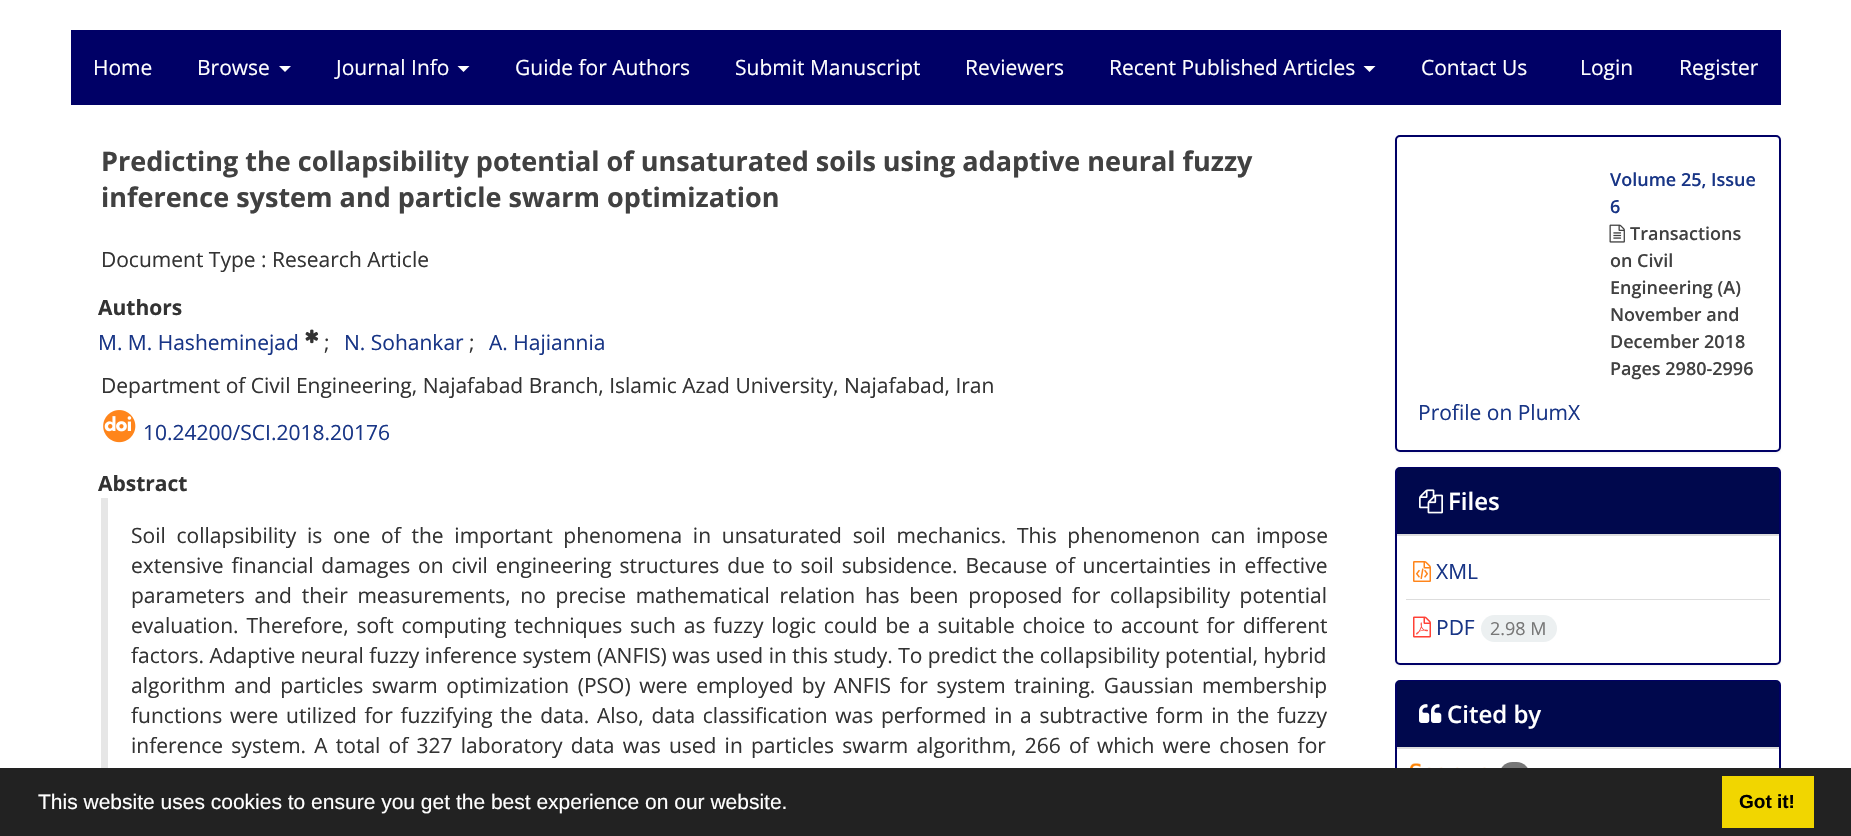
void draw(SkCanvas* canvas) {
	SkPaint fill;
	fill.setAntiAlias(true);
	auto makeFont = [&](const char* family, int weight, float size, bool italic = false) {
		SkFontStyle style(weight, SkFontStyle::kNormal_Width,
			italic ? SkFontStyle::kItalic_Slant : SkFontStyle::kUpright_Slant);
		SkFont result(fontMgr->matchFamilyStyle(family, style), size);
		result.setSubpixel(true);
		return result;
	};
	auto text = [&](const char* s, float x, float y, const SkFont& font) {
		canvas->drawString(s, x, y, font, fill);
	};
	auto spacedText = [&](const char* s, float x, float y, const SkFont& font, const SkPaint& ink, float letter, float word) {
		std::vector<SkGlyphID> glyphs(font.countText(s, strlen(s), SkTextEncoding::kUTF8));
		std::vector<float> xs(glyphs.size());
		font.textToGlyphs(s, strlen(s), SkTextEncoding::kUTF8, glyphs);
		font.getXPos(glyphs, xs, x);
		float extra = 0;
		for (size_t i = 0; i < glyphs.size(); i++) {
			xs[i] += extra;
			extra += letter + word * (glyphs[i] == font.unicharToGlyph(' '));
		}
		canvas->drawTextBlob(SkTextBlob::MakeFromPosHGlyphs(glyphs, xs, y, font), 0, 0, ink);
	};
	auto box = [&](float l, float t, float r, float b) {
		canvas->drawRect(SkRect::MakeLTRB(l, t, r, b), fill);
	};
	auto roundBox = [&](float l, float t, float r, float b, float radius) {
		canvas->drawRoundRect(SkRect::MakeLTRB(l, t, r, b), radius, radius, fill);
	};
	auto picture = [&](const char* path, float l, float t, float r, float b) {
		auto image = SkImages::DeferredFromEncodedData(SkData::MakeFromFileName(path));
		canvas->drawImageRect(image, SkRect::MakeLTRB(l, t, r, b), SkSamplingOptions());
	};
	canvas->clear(0xFFFFFFFF);
	fill.setColor(0xFF000066);
	box(71, 30, 1781, 105);
	fill.setColor(0xFFFFFFFF);
	canvas->drawPath(SkPathBuilder().moveTo(279, 66).lineTo(291, 66).lineTo(285, 72).close().detach(), fill);
	canvas->drawPath(SkPathBuilder().moveTo(457.5f, 66).lineTo(469.5f, 66).lineTo(463.5f, 72).close().detach(), fill);
	canvas->drawPath(SkPathBuilder().moveTo(1363.5f, 66).lineTo(1375.5f, 66).lineTo(1369.5f, 72).close().detach(), fill);
	picture("image0.png", 305, 329, 319, 344);
	picture("image1.png", 103, 410, 136, 443);
	fill.setColor(0xFFE6E6E6);
	box(101, 498, 108, 768);
	fill.setColor(0x0D000000);
	fill.setMaskFilter(SkMaskFilter::MakeBlur(kNormal_SkBlurStyle, 1));
	canvas->drawRoundRect(SkRect::MakeLTRB(1395, 137, 1781, 453), 5, 5, fill);
	fill.setMaskFilter(nullptr);
	fill.setColor(0xFFFFFFFF);
	canvas->drawRoundRect(SkRect::MakeLTRB(1396, 136, 1780, 451), 4, 4, fill);
	fill.setStyle(SkPaint::kStroke_Style);
	fill.setStrokeWidth(2);
	fill.setColor(0xFF000066);
	canvas->drawRoundRect(SkRect::MakeLTRB(1396, 136, 1780, 451), 4, 4, fill);
	picture("image2.png", 1609, 224, 1625, 243);
	fill.setStyle(SkPaint::kFill_Style);
	fill.setColor(0x0D000000);
	fill.setMaskFilter(SkMaskFilter::MakeBlur(kNormal_SkBlurStyle, 1));
	canvas->drawRoundRect(SkRect::MakeLTRB(1395, 468, 1781, 666), 5, 5, fill);
	fill.setMaskFilter(nullptr);
	fill.setColor(0xFFFFFFFF);
	canvas->drawRoundRect(SkRect::MakeLTRB(1396, 468, 1780, 664), 4, 4, fill);
	fill.setStyle(SkPaint::kStroke_Style);
	fill.setColor(0xFF000066);
	canvas->drawRoundRect(SkRect::MakeLTRB(1396, 468, 1780, 664), 4, 4, fill);
	fill.setStyle(SkPaint::kFill_Style);
	fill.setColor(0xFF00084D);
	box(1397, 468, 1779, 534);
	fill.setColor(0xFFDDDDDD);
	box(1397, 534, 1779, 536);
	picture("image3.png", 1419, 489, 1443, 514);
	box(1406, 599, 1770, 600);
	picture("image4.png", 1413, 561, 1431, 582);
	picture("image5.png", 1413, 616, 1431, 638);
	fill.setColor(0xFFECF0F1);
	roundBox(1481, 615, 1557, 642, 13.5f);
	fill.setStyle(SkPaint::kStroke_Style);
	fill.setColor(0xFF000066);
	canvas->drawRoundRect(SkRect::MakeLTRB(1396, 681, 1780, 799), 4, 4, fill);
	fill.setStyle(SkPaint::kFill_Style);
	fill.setColor(0xFF00084D);
	box(1397, 681, 1779, 747);
	fill.setColor(0xFFDDDDDD);
	box(1397, 747, 1779, 749);
	picture("image6.png", 1419, 704, 1442, 723);
	picture("image7.png", 1410, 763, 1486, 768);
	fill.setColor(0xFF777777);
	roundBox(1499, 762, 1530, 789, 13.5f);
	fill.setColor(0xFF222222);
	box(0, 768, 1851, 836);
	fill.setColor(0xFFF1D600);
	box(1722, 776, 1814, 828);
	auto font1 = makeFont("Open Sans", 400, 21);
	fill.setColor(0xFFFFFFFF);
	text("Home", 93, 75, font1);
	text("Browse", 197, 75, font1);
	text("Journal Info", 336, 75, font1);
	text("Guide for Authors", 515, 75, font1);
	text("Submit Manuscript", 735, 75, font1);
	text("Reviewers", 965, 75, font1);
	text("Recent Published Articles", 1109, 75, font1);
	text("Contact Us", 1421, 75, font1);
	text("Login", 1580, 75, font1);
	text("Register", 1679, 75, font1);
	auto font2 = makeFont("Open Sans", 700, 27);
	fill.setColor(0xFF414141);
	text("Predicting the collapsibility potential of unsaturated soils using adaptive neural fuzzy", 101, 171, font2);
	text("inference system and particle swarm optimization", 101, 207, font2);
	fill.setColor(0xFF333333);
	text("Document Type : Research Article", 101, 267, font1);
	auto font3 = makeFont("Open Sans", 700, 21);
	text("Authors", 98, 315, font3);
	fill.setColor(0xFF183586);
	text("M. M. Hasheminejad", 98, 350, font1);
	fill.setColor(0xFF333333);
	text(";", 324, 350, font1);
	fill.setColor(0xFF183586);
	text("N. Sohankar", 344, 350, font1);
	fill.setColor(0xFF333333);
	text(";", 469, 350, font1);
	fill.setColor(0xFF183586);
	text("A. Hajiannia", 489, 350, font1);
	fill.setColor(0xFF333333);
	text("Department of Civil Engineering, Najafabad Branch, Islamic Azad University, Najafabad, Iran", 101, 393, font1);
	fill.setColor(0xFF183586);
	text("10.24200/SCI.2018.20176", 143, 440, font1);
	fill.setColor(0xFF333333);
	text("Abstract", 98, 491, font3);
	spacedText("Soil collapsibility is one of the important phenomena in unsaturated soil mechanics. This phenomenon can impose", 131, 543, font1, fill, 0, 5.25f);
	spacedText("extensive financial damages on civil engineering structures due to soil subsidence. Because of uncertainties in effective", 131, 573, font1, fill, 0, 2.4f);
	spacedText("parameters and their measurements, no precise mathematical relation has been proposed for collapsibility potential", 131, 603, font1, fill, 0, 4.25f);
	spacedText("evaluation. Therefore, soft computing techniques such as fuzzy logic could be a suitable choice to account for different", 131, 633, font1, fill, 0, 2.4f);
	text("factors. Adaptive neural fuzzy inference system (ANFIS) was used in this study. To predict the collapsibility potential, hybrid", 131, 663, font1);
	spacedText("algorithm and particles swarm optimization (PSO) were employed by ANFIS for system training. Gaussian membership", 131, 693, font1, fill, 0, 3.1f);
	spacedText("functions were utilized for fuzzifying the data. Also, data classification was performed in a subtractive form in the fuzzy", 131, 723, font1, fill, 0, 2.25f);
	spacedText("inference system. A total of 327 laboratory data was used in particles swarm algorithm, 266 of which were chosen for", 131, 753, font1, fill, 0, 2.75f);
	auto font4 = makeFont("Open Sans", 600, 18);
	fill.setColor(0xFF183586);
	text("Volume 25, Issue", 1610, 186, font4);
	text("6", 1610, 213, font4);
	fill.setColor(0xFF414141);
	text("Transactions", 1630, 240, font4);
	text("on Civil", 1610, 267, font4);
	text("Engineering (A)", 1610, 294, font4);
	text("November and", 1610, 321, font4);
	text("December 2018", 1610, 348, font4);
	text("Pages 2980-2996", 1610, 375, font4);
	fill.setColor(0xFF183586);
	text("Profile on PlumX", 1418, 420, font1);
	auto font5 = makeFont("Open Sans", 600, 24);
	fill.setColor(0xFFFFFFFF);
	text("Files", 1448, 510, font5);
	fill.setColor(0xFF183586);
	text("XML", 1436, 579, font1);
	text("PDF", 1436, 635, font1);
	auto font6 = makeFont("Open Sans", 400, 18);
	fill.setColor(0xFF777777);
	text("2.98 M", 1490, 635, font6);
	fill.setColor(0xFFFFFFFF);
	text("Cited by", 1447, 723, font5);
	auto font7 = makeFont("Liberation Sans", 400, 21);
	text("This website uses cookies to ensure you get the best experience on our website.", 38, 809, font7);
	auto font8 = makeFont("Liberation Sans", 700, 19);
	fill.setColor(0xFF000000);
	text("Got it!", 1739, 808, font8);
}
